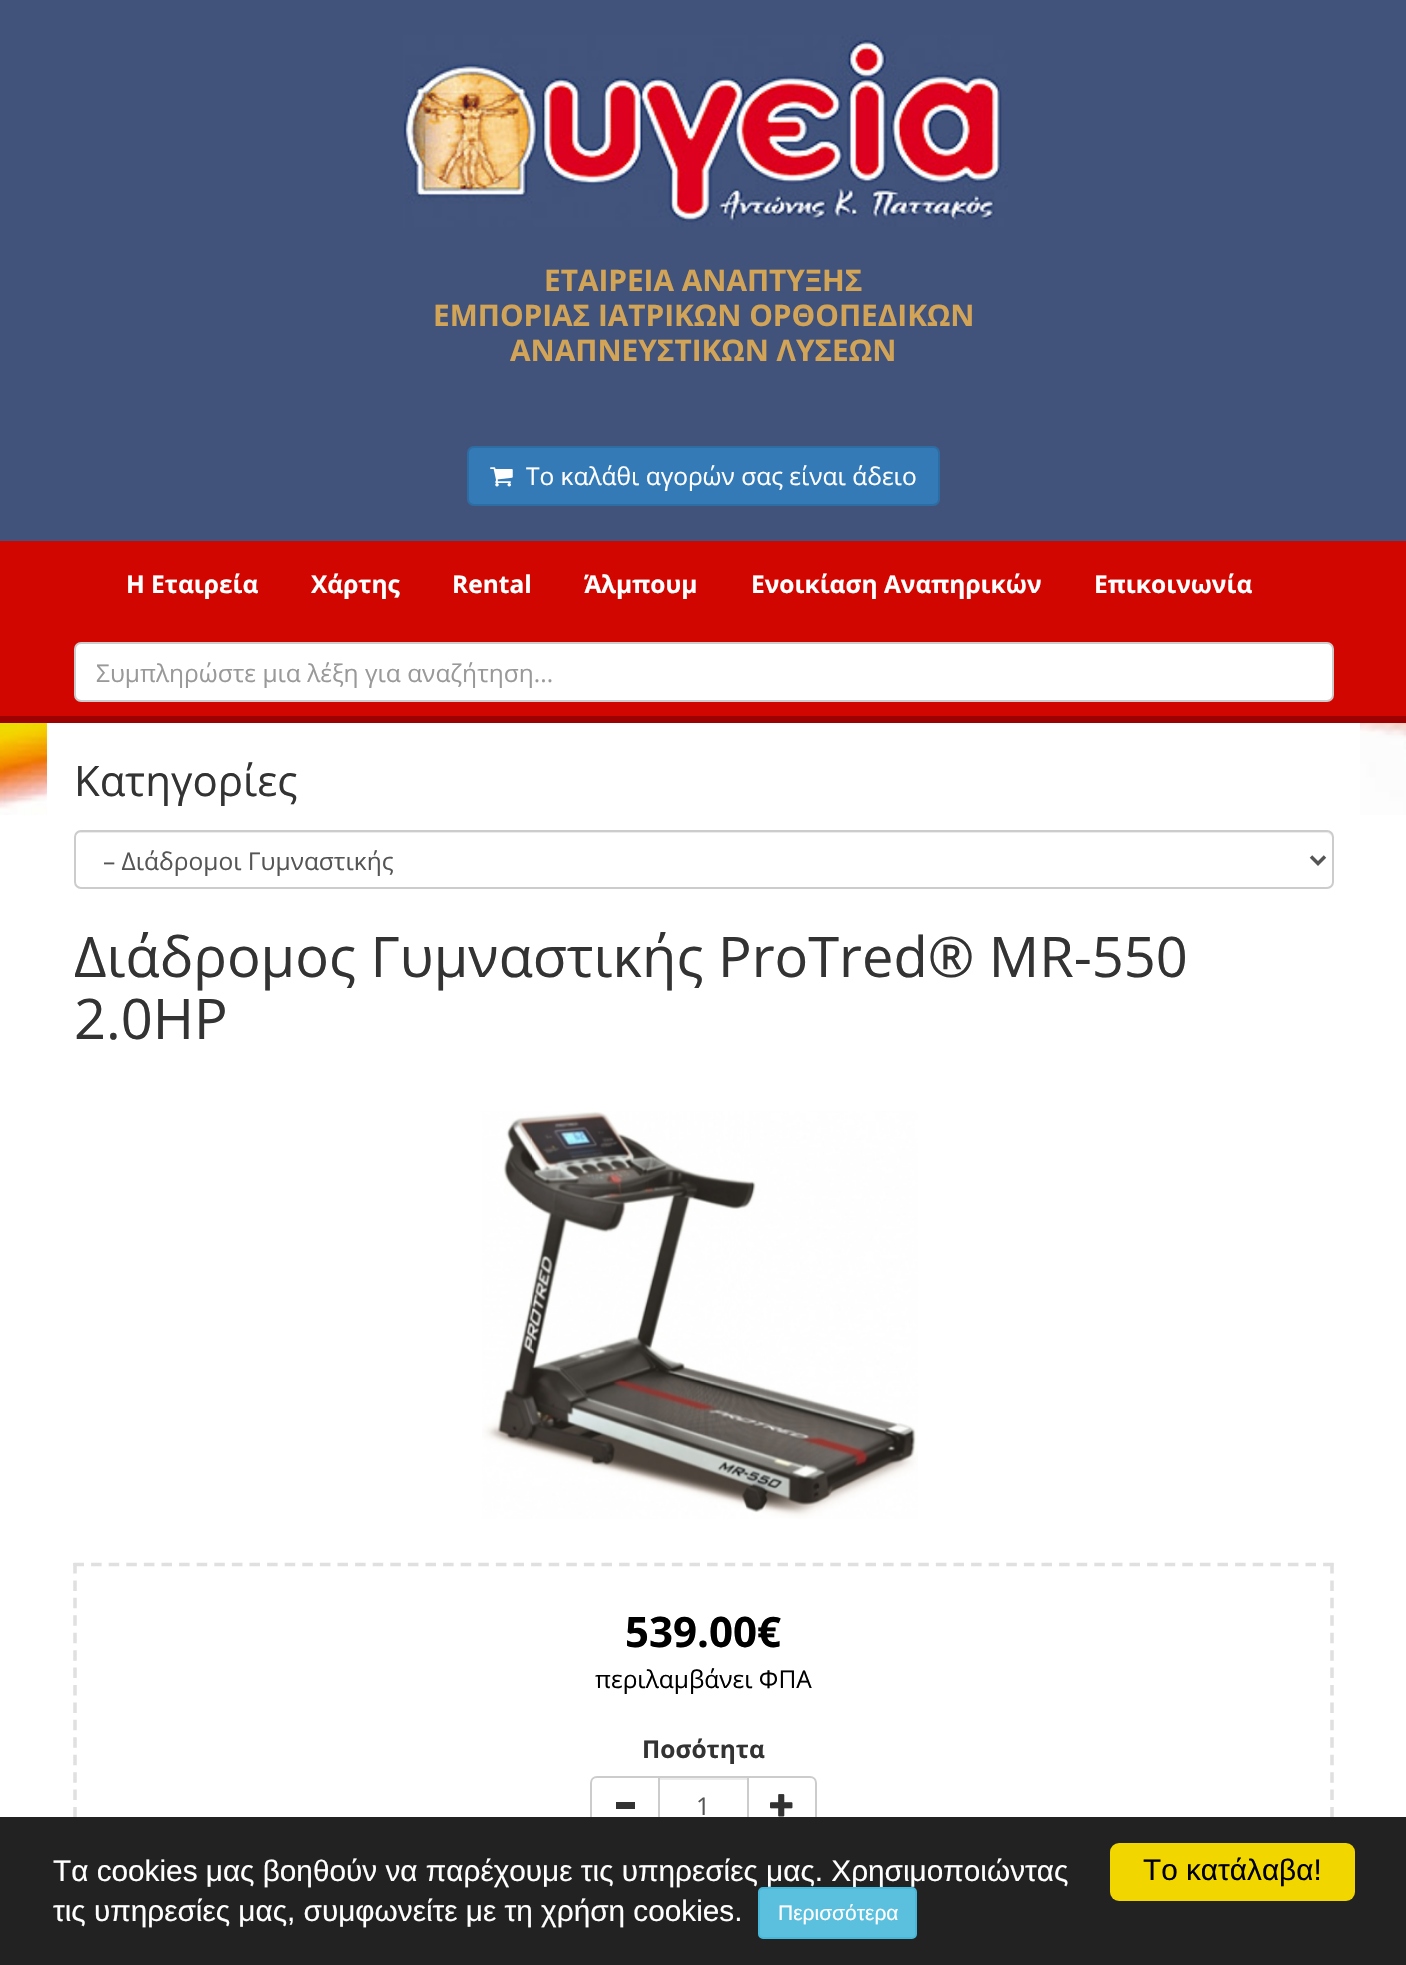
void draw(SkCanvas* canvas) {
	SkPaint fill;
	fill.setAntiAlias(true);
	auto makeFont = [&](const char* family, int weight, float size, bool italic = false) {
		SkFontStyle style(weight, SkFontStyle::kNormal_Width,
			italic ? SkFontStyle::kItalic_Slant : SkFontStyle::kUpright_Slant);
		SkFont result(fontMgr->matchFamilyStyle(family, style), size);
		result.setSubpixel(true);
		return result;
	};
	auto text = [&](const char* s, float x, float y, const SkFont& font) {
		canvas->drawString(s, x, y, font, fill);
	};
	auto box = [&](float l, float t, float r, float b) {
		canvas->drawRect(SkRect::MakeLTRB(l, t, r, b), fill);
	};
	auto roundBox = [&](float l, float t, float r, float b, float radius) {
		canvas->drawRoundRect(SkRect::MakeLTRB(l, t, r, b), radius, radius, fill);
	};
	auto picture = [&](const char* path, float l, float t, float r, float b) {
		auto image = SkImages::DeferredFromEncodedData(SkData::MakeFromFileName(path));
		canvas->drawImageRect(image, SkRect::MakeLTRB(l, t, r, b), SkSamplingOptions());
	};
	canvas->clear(0xFFFFFFFF);
	picture("image0.png", 0, 723, 1406, 815);
	fill.setColor(0xFF41537B);
	box(0, 0, 1406, 541);
	picture("image1.png", 403, 35, 1008, 227);
	fill.setColor(0xFF337AB7);
	canvas->drawRoundRect(SkRect::MakeLTRB(468, 447, 939, 505), 6, 6, fill);
	fill.setStyle(SkPaint::kStroke_Style);
	fill.setStrokeWidth(2);
	fill.setColor(0xFF2E6DA4);
	canvas->drawRoundRect(SkRect::MakeLTRB(468, 447, 939, 505), 6, 6, fill);
	picture("image2.png", 490, 467, 513, 487);
	fill.setStyle(SkPaint::kFill_Style);
	fill.setColor(0xFFD10600);
	box(0, 541, 1406, 716);
	fill.setColor(0xFF9D0101);
	box(0, 716, 1406, 723);
	fill.setColor(0xFFFFFFFF);
	canvas->drawRoundRect(SkRect::MakeLTRB(75, 643, 1333, 701), 6, 6, fill);
	fill.setStyle(SkPaint::kStroke_Style);
	fill.setColor(0xFFCCCCCC);
	canvas->drawRoundRect(SkRect::MakeLTRB(75, 643, 1333, 701), 6, 6, fill);
	fill.setStyle(SkPaint::kFill_Style);
	fill.setColor(0xFFFFFFFF);
	box(47, 723, 1360, 815);
	fill.setColor(0xFFECECEC);
	canvas->drawPath(SkPathBuilder().moveTo(80, 833).lineTo(1326, 833).cubicTo(1329, 833, 1332, 835, 1332, 838).lineTo(1332, 836).cubicTo(1332, 833, 1330, 831, 1327, 831).lineTo(80, 831).cubicTo(77, 831, 75, 833, 75, 836).lineTo(75, 838).cubicTo(75, 835, 78, 833, 80, 833).close().detach(), fill);
	fill.setStyle(SkPaint::kStroke_Style);
	fill.setColor(0xFFCCCCCC);
	canvas->drawRoundRect(SkRect::MakeLTRB(75, 831, 1333, 888), 6, 6, fill);
	fill.setStrokeWidth(3.5f);
	fill.setColor(0xFF555555);
	canvas->drawPath(SkPathBuilder().moveTo(1311, 856.5f).lineTo(1318, 863.5f).lineTo(1325, 856.5f).detach(), fill);
	picture("image3.png", 482, 1111, 918, 1519);
	fill.setColor(0xFFE0E0E0);
	fill.setPathEffect(SkDashPathEffect::Make({{10.5f, 7.1f}}, 0));
	canvas->drawPath(SkPathBuilder().moveTo(73.5f, 1564.5f).lineTo(1333.5f, 1564.5f).detach(), fill);
	fill.setPathEffect(nullptr);
	fill.setPathEffect(SkDashPathEffect::Make({{10.5f, 6.93f}}, 0));
	canvas->drawPath(SkPathBuilder().moveTo(1332, 1563).lineTo(1332, 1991.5f).detach(), fill);
	fill.setPathEffect(nullptr);
	fill.setPathEffect(SkDashPathEffect::Make({{10.5f, 6.93f}}, 0));
	canvas->drawPath(SkPathBuilder().moveTo(75, 1563).lineTo(75, 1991.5f).detach(), fill);
	fill.setPathEffect(nullptr);
	fill.setStrokeWidth(2);
	fill.setColor(0xFFCCCCCC);
	canvas->drawPath(SkPathBuilder().moveTo(597, 1777).lineTo(659, 1777).lineTo(659, 1835).lineTo(597, 1835).cubicTo(593.5f, 1835, 591, 1832.5f, 591, 1829).lineTo(591, 1783).cubicTo(591, 1779.5f, 593.5f, 1777, 597, 1777).close().detach(), fill);
	fill.setStyle(SkPaint::kFill_Style);
	fill.setColor(0xFF333333);
	box(616, 1802, 635, 1809);
	fill.setColor(0xFFECECEC);
	box(660, 1778, 747, 1780);
	fill.setStyle(SkPaint::kStroke_Style);
	fill.setColor(0xFFCCCCCC);
	canvas->drawRect(SkRect::MakeLTRB(659, 1777, 748, 1835), fill);
	fill.setStyle(SkPaint::kFill_Style);
	fill.setColor(0xFFFFFFFF);
	canvas->drawPath(SkPathBuilder().moveTo(748, 1777).lineTo(810, 1777).cubicTo(813.5f, 1777, 816, 1779.5f, 816, 1783).lineTo(816, 1829).cubicTo(816, 1832.5f, 813.5f, 1835, 810, 1835).lineTo(748, 1835).close().detach(), fill);
	fill.setStyle(SkPaint::kStroke_Style);
	fill.setColor(0xFFCCCCCC);
	canvas->drawPath(SkPathBuilder().moveTo(748, 1777).lineTo(810, 1777).cubicTo(813.5f, 1777, 816, 1779.5f, 816, 1783).lineTo(816, 1829).cubicTo(816, 1832.5f, 813.5f, 1835, 810, 1835).lineTo(748, 1835).close().detach(), fill);
	picture("image4.png", 770, 1794, 793, 1817);
	fill.setStyle(SkPaint::kFill_Style);
	fill.setColor(0xFF222222);
	box(0, 1817, 1406, 1965);
	fill.setColor(0xFFF1D600);
	roundBox(1110, 1843, 1355, 1901, 9);
	auto font1 = makeFont("Open Sans", 700, 29.75f);
	fill.setColor(0xFFD2A458);
	text("ΕΤΑΙΡΕΙΑ ΑΝΑΠΤΥΞΗΣ", 544, 291, font1);
	text("ΕΜΠΟΡΙΑΣ ΙΑΤΡΙΚΩΝ ΟΡΘΟΠΕΔΙΚΩΝ", 433, 326, font1);
	text("ΑΝΑΠΝΕΥΣΤΙΚΩΝ ΛΥΣΕΩΝ", 510, 361, font1);
	auto font2 = makeFont("Open Sans", 400, 24.5f);
	fill.setColor(0xFFFFFFFF);
	text("Το καλάθι αγορών σας είναι άδειο", 526, 485, font2);
	auto font3 = makeFont("Open Sans", 700, 24.5f);
	text("Η Εταιρεία", 126, 593, font3);
	text("Χάρτης", 311, 593, font3);
	text("Rental", 452, 593, font3);
	text("Άλμπουμ", 584, 593, font3);
	text("Ενοικίαση Αναπηρικών", 751, 593, font3);
	text("Επικοινωνία", 1094, 593, font3);
	fill.setColor(0xFF999999);
	text("Συμπληρώστε μια λέξη για αναζήτηση...", 96, 682, font2);
	auto font4 = makeFont("Open Sans", 400, 42);
	fill.setColor(0xFF333333);
	text("Κατηγορίες", 74, 796, font4);
	fill.setColor(0xFF555555);
	text("– Διάδρομοι Γυμναστικής", 103, 870, font2);
	auto font5 = makeFont("Open Sans", 400, 56);
	fill.setColor(0xFF333333);
	text("Διάδρομος Γυμναστικής ProTred® MR-550", 74, 977, font5);
	text("2.0HP", 74, 1039, font5);
	auto font6 = makeFont("Open Sans", 700, 42);
	fill.setColor(0xFF000000);
	text("539.00€", 625, 1647, font6);
	text("περιλαμβάνει ΦΠΑ", 595, 1688, font2);
	fill.setColor(0xFF333333);
	text("Ποσότητα", 642, 1758, font3);
	fill.setColor(0xFF555555);
	text("1", 696, 1815, font2);
	auto font7 = makeFont("Liberation Sans", 400, 29.75f);
	fill.setColor(0xFFFFFFFF);
	text("Τα cookies μας βοηθούν να παρέχουμε τις υπηρεσίες μας. Χρησιμοποιώντας", 53, 1881, font7);
	text("τις υπηρεσίες μας, συμφωνείτε με τη χρήση cookies.", 53, 1921, font7);
	fill.setColor(0xFF5BC0DE);
	canvas->drawRoundRect(SkRect::MakeLTRB(759, 1888, 916, 1938), 4, 4, fill);
	fill.setStyle(SkPaint::kStroke_Style);
	fill.setColor(0xFF46B8DA);
	canvas->drawRoundRect(SkRect::MakeLTRB(759, 1888, 916, 1938), 4, 4, fill);
	auto font8 = makeFont("Liberation Sans", 400, 21);
	fill.setStyle(SkPaint::kFill_Style);
	fill.setColor(0xFFFFFFFF);
	text("Περισσότερα", 778, 1920, font8);
	fill.setColor(0xFF000000);
	text("Το κατάλαβα!", 1143, 1880, font7);
}
